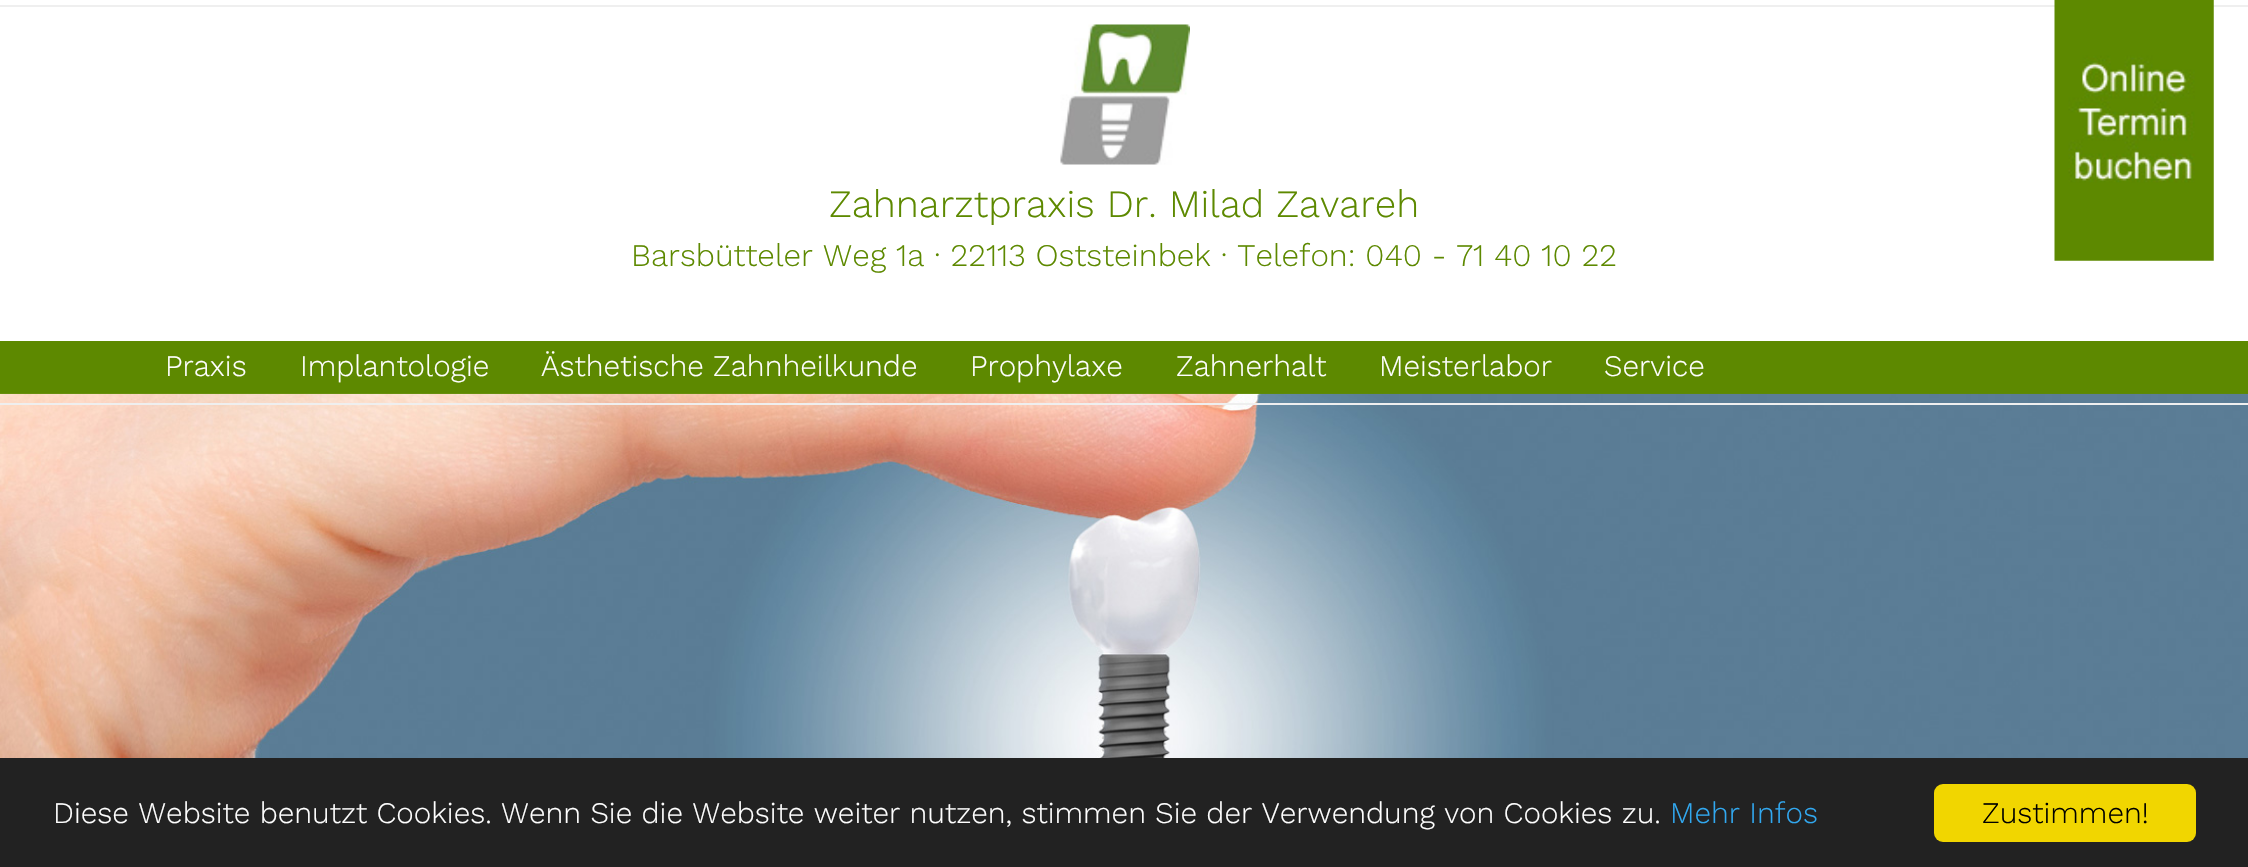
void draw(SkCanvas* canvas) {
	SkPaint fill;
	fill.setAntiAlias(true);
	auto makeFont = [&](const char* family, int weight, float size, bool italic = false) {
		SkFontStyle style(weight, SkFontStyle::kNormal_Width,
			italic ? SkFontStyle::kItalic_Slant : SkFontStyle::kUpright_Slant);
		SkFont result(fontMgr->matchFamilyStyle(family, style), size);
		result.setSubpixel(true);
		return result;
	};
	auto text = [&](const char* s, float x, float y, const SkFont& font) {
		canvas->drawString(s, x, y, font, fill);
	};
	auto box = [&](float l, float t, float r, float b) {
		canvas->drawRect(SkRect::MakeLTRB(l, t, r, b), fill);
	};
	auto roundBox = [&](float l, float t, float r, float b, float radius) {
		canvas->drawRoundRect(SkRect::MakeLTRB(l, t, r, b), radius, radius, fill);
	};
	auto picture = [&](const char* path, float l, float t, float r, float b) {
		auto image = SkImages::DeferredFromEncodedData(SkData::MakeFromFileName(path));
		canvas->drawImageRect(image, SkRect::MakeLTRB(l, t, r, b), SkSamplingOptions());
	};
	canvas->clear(0xFFFFFFFF);
	fill.setColor(0xFFEFEFEF);
	box(0, 5, 2248, 7);
	picture("image0.png", 1060, 24, 1190, 165);
	picture("image1.png", 2054, 0, 2214, 261);
	fill.setColor(0xFF5D8900);
	box(0, 341, 2248, 394);
	picture("image2.png", 0, 393, 2248, 758);
	fill.setColor(0xFFEFEFEF);
	box(0, 403, 2248, 405);
	fill.setColor(0xFF222222);
	box(0, 758, 2248, 867);
	fill.setColor(0xFFF1D600);
	roundBox(1934, 784, 2196, 842, 9);
	auto font1 = makeFont("Work Sans", 300, 38.5f);
	fill.setColor(0xFF5D8900);
	text("Zahnarztpraxis Dr. Milad Zavareh", 829, 217, font1);
	auto font2 = makeFont("Work Sans", 300, 31.5f);
	text("Barsbütteler Weg 1a · 22113 Oststeinbek · Telefon: 040 - 71 40 10 22", 631, 266, font2);
	auto font3 = makeFont("Work Sans", 300, 29.75f);
	fill.setColor(0xFFFFFFFF);
	text("Praxis", 165, 376, font3);
	text("Implantologie", 300, 376, font3);
	text("Ästhetische Zahnheilkunde", 541, 376, font3);
	text("Prophylaxe", 970, 376, font3);
	text("Zahnerhalt", 1176, 376, font3);
	text("Meisterlabor", 1379, 376, font3);
	text("Service", 1604, 376, font3);
	text("Diese Website benutzt Cookies. Wenn Sie die Website weiter nutzen, stimmen Sie der Verwendung von Cookies zu.", 53, 823, font3);
	fill.setColor(0xFF31A8F0);
	text("Mehr Infos", 1670, 823, font3);
	fill.setColor(0xFF000000);
	text("Zustimmen!", 1982, 823, font3);
}
